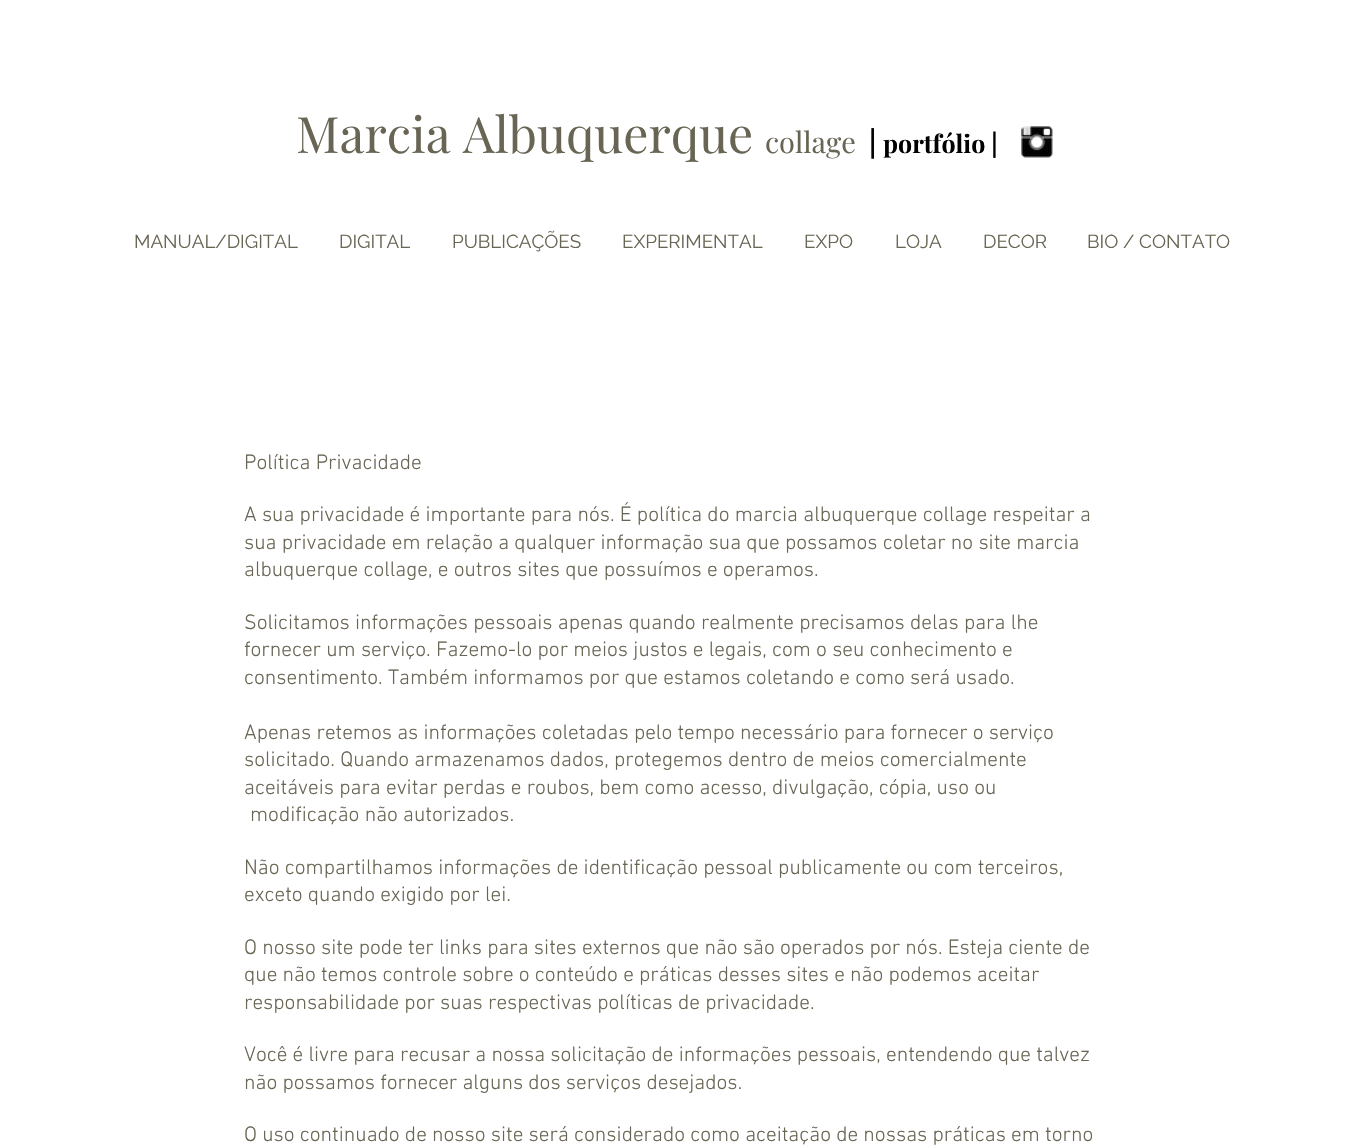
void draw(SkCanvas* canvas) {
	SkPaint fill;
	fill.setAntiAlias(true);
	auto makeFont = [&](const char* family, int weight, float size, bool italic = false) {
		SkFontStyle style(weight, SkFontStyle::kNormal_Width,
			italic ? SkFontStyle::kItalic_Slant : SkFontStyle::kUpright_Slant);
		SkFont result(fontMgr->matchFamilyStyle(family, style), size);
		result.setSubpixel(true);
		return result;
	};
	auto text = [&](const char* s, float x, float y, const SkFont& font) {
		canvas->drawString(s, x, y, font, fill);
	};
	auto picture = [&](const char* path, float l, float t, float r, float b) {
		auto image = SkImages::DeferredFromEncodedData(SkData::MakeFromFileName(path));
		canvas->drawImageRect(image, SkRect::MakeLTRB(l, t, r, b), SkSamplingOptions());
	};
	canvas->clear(0xFFFFFFFF);
	picture("image0.png", 1021, 126, 1053, 158);
	auto font1 = makeFont("Playfair Display", 400, 50);
	fill.setColor(0xFF696554);
	text("Marcia Albuquerque", 296, 153, font1);
	auto font2 = makeFont("Playfair Display", 400, 29);
	text("collage", 765, 153, font2);
	auto font3 = makeFont("Playfair Display", 700, 29);
	fill.setColor(0xFF000000);
	text("|", 869, 153, font3);
	auto font4 = makeFont("Playfair Display", 700, 25);
	text("portfólio |", 883, 153, font4);
	auto font5 = makeFont("Raleway", 400, 18.75f);
	fill.setColor(0xFF696554);
	text("MANUAL/DIGITAL", 134, 248, font5);
	text("DIGITAL", 339, 248, font5);
	text("PUBLICAÇÕES", 452, 248, font5);
	text("EXPERIMENTAL", 622, 248, font5);
	text("EXPO", 804, 248, font5);
	text("LOJA", 895, 248, font5);
	text("DECOR", 983, 248, font5);
	text("BIO / CONTATO", 1087, 248, font5);
	auto font6 = makeFont("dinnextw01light", 300, 21.25f);
	text("Política Privacidade", 244, 469, font6);
	text("A sua privacidade é importante para nós. É política do marcia albuquerque collage respeitar a", 244, 521, font6);
	text("sua privacidade em relação a qualquer informação sua que possamos coletar no site marcia", 244, 549, font6);
	text("albuquerque collage, e outros sites que possuímos e operamos.", 244, 576, font6);
	text("Solicitamos informações pessoais apenas quando realmente precisamos delas para lhe", 244, 629, font6);
	text("fornecer um serviço. Fazemo-lo por meios justos e legais, com o seu conhecimento e", 244, 656, font6);
	text("consentimento. Também informamos por que estamos coletando e como será usado.", 244, 684, font6);
	text("Apenas retemos as informações coletadas pelo tempo necessário para fornecer o serviço", 244, 739, font6);
	text("solicitado. Quando armazenamos dados, protegemos dentro de meios comercialmente", 244, 766, font6);
	text("aceitáveis para evitar perdas e roubos, bem como acesso, divulgação, cópia, uso ou", 244, 794, font6);
	text("modificação não autorizados.", 250, 821, font6);
	text("Não compartilhamos informações de identificação pessoal publicamente ou com terceiros,", 244, 874, font6);
	text("exceto quando exigido por lei.", 244, 901, font6);
	text("O nosso site pode ter links para sites externos que não são operados por nós. Esteja ciente de", 244, 954, font6);
	text("que não temos controle sobre o conteúdo e práticas desses sites e não podemos aceitar", 244, 981, font6);
	text("responsabilidade por suas respectivas políticas de privacidade.", 244, 1009, font6);
	text("Você é livre para recusar a nossa solicitação de informações pessoais, entendendo que talvez", 244, 1061, font6);
	text("não possamos fornecer alguns dos serviços desejados.", 244, 1089, font6);
	text("O uso continuado de nosso site será considerado como aceitação de nossas práticas em torno", 244, 1141, font6);
}
